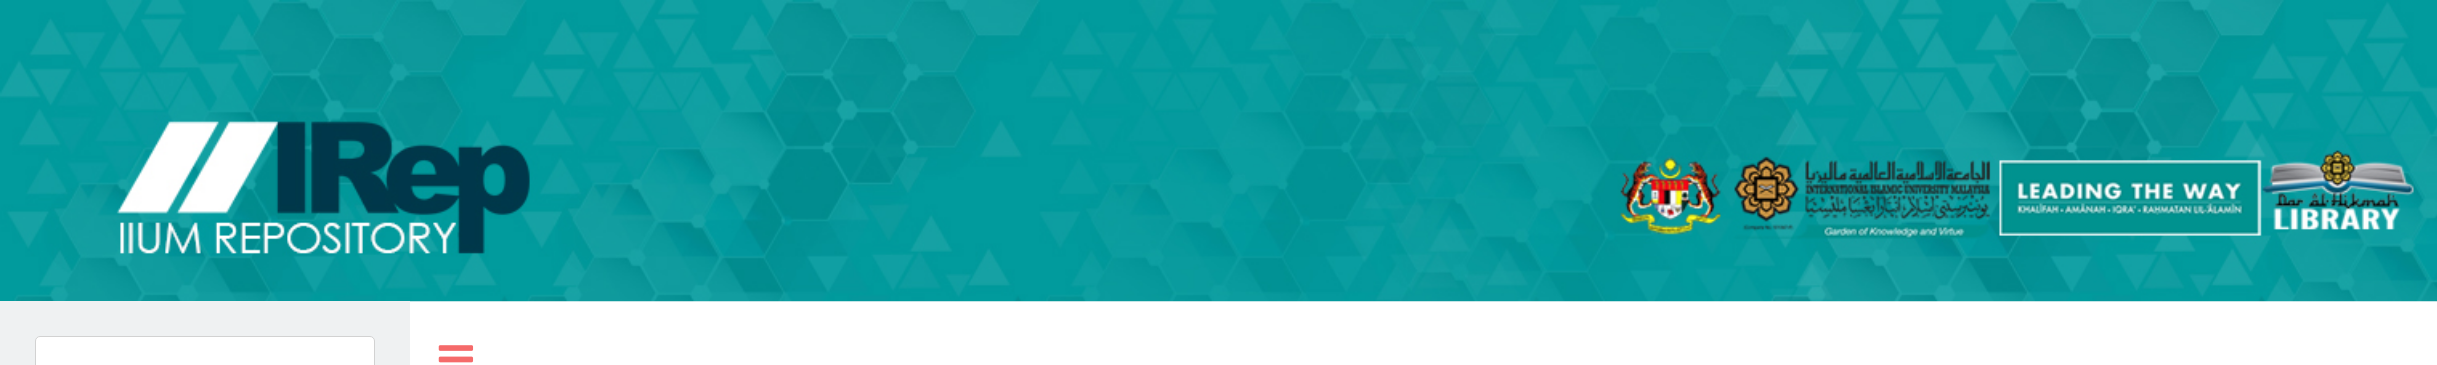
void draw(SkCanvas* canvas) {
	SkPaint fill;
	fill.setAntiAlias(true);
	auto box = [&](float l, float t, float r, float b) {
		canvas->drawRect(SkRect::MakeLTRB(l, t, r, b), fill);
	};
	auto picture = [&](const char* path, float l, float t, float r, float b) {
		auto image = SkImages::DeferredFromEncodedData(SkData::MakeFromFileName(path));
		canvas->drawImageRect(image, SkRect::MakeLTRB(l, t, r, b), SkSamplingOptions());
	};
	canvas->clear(0xFFFFFFFF);
	picture("image0.png", 0, 0, 2437, 302);
	fill.setColor(0xFFEFF1F2);
	box(0, 301, 410, 365);
	fill.setColor(0xFFFFFFFF);
	canvas->drawRoundRect(SkRect::MakeLTRB(35.5f, 336.5f, 374.5f, 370.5f), 4.5f, 4.5f, fill);
	fill.setStyle(SkPaint::kStroke_Style);
	fill.setStrokeWidth(1);
	fill.setColor(0xFFD2D2D2);
	canvas->drawRoundRect(SkRect::MakeLTRB(35.5f, 336.5f, 374.5f, 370.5f), 4.5f, 4.5f, fill);
	picture("image1.png", 438, 345, 474, 363);
}
